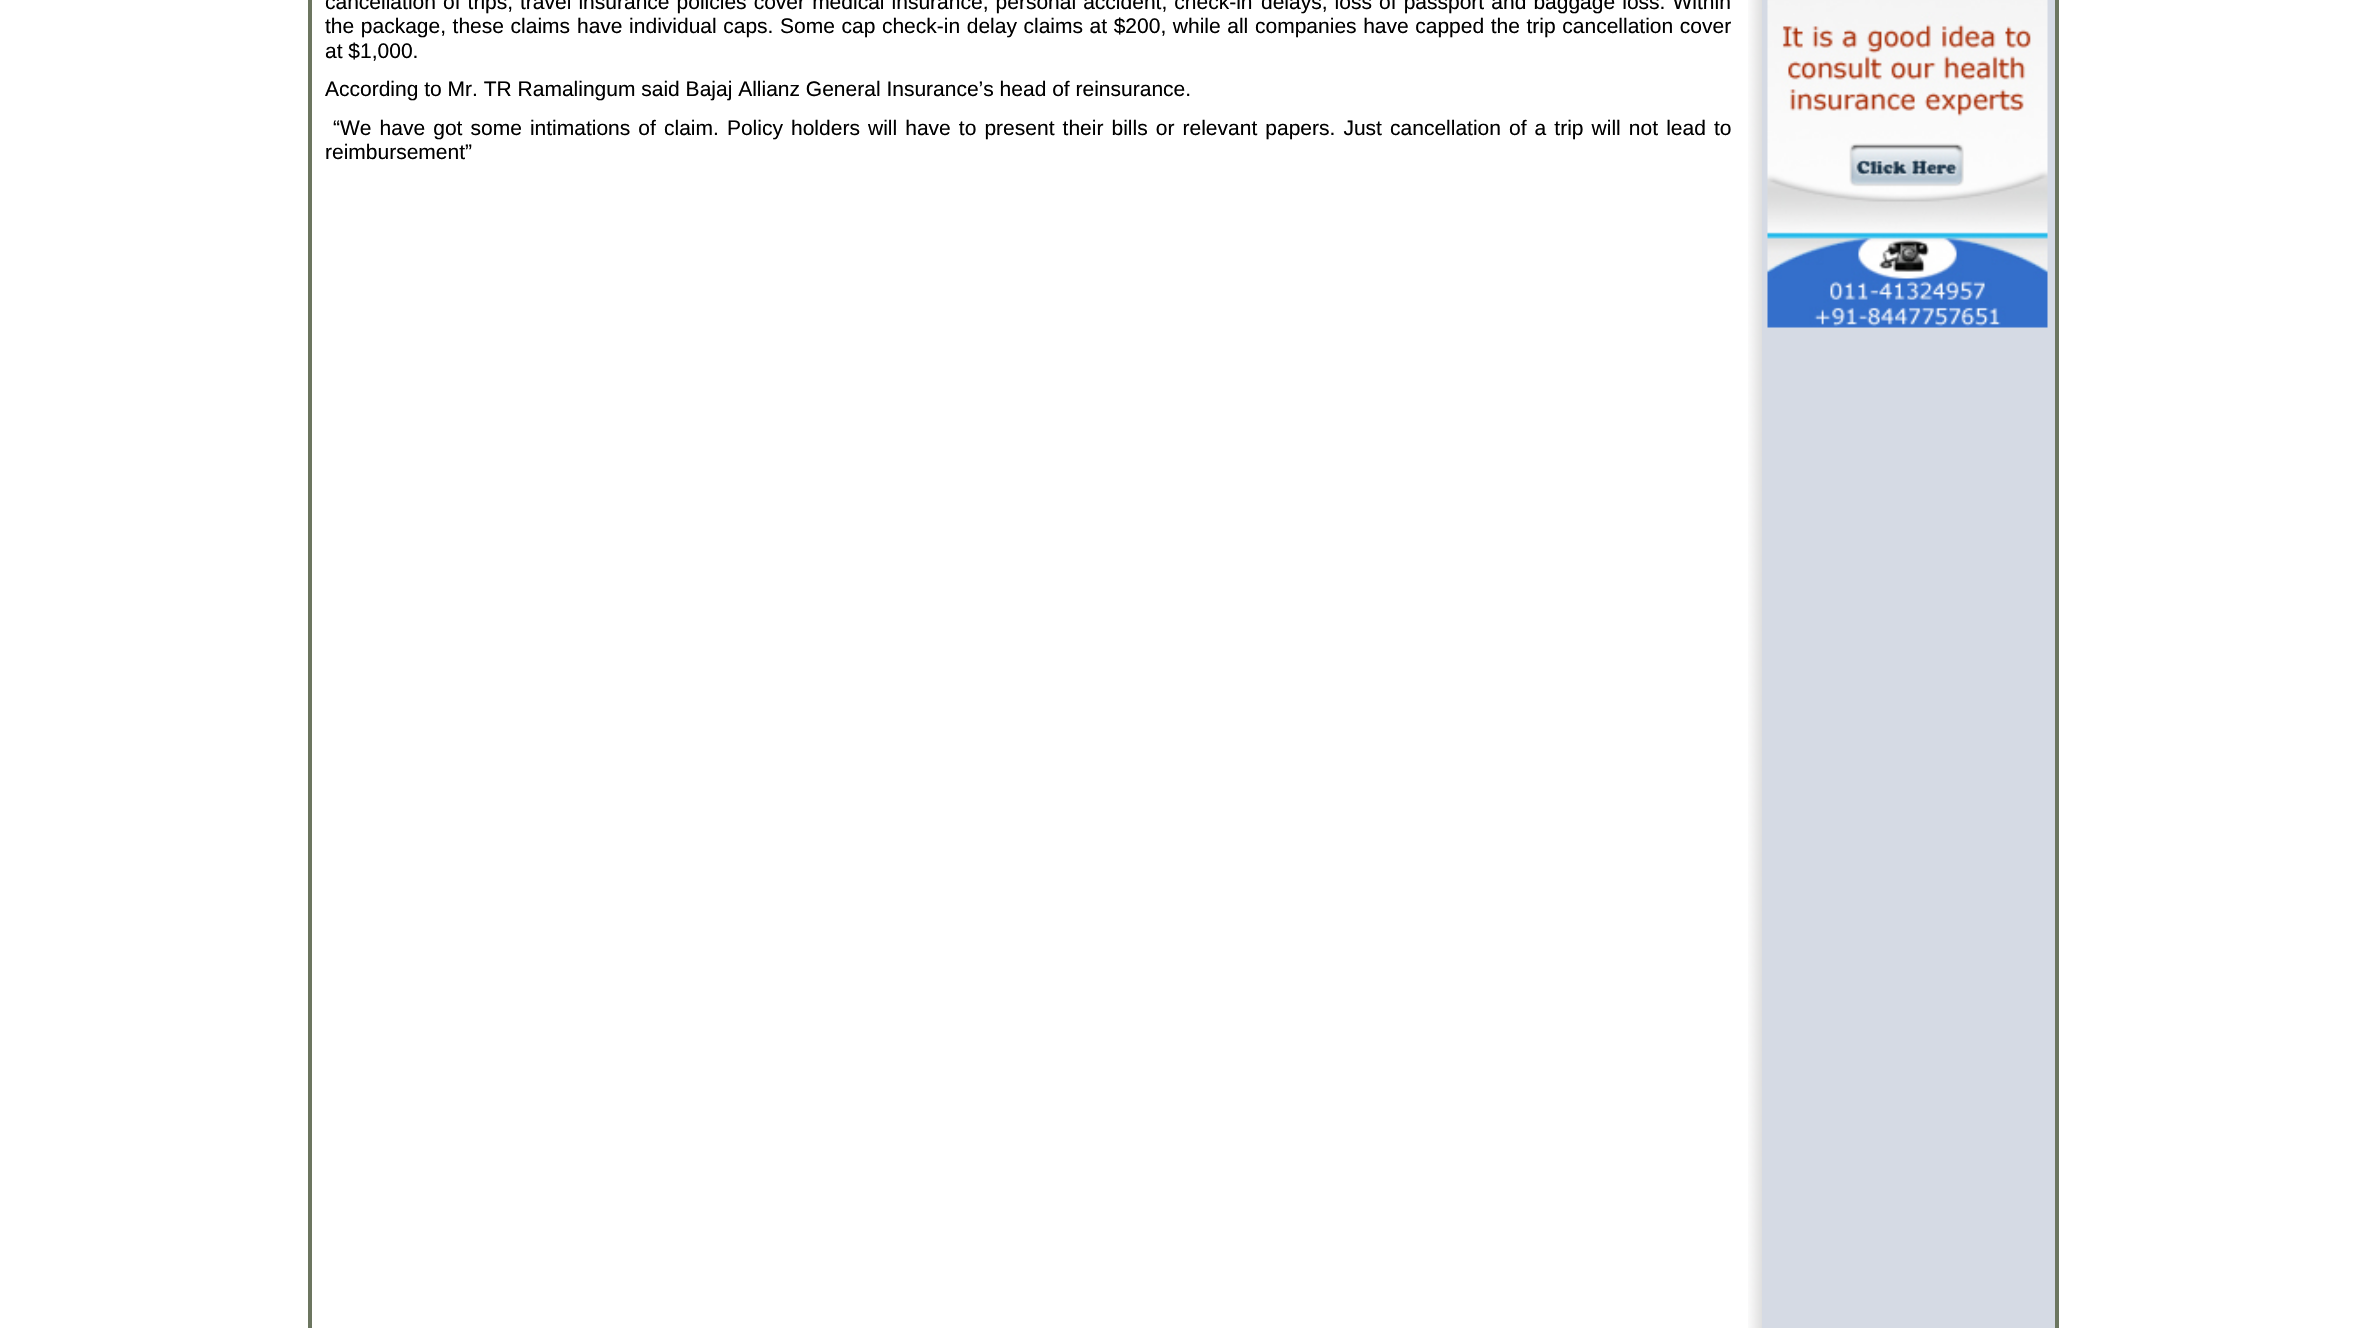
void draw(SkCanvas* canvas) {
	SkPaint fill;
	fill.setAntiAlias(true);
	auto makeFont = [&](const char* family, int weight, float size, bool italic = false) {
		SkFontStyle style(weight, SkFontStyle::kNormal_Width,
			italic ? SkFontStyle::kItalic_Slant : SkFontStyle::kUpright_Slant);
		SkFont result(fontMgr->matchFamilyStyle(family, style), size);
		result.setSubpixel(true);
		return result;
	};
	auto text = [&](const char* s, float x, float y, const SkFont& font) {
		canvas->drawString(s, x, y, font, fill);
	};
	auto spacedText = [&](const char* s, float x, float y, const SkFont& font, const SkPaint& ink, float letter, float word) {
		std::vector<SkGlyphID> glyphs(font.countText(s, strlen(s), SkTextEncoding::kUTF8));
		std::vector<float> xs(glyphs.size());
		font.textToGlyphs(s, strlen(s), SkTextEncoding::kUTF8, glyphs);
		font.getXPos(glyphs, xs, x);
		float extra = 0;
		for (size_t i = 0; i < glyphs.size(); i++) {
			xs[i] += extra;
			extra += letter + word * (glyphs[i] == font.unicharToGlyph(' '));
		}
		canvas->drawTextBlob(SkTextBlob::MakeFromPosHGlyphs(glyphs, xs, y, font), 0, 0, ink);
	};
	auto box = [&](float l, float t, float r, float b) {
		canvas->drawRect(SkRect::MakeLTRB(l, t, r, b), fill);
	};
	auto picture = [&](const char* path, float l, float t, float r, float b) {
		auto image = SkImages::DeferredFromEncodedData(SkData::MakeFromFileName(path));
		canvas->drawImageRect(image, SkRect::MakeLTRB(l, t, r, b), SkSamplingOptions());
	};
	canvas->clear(0xFFFFFFFF);
	fill.setColor(0xFF6C7660);
	box(308, 0, 312, 1328);
	picture("image0.png", 1748, 0, 1762, 1328);
	fill.setColor(0xFFD5DAE4);
	box(1762, 0, 2055, 1328);
	picture("image1.png", 1767, 0, 2048, 328);
	fill.setColor(0xFF6C7660);
	box(2055, 0, 2059, 1328);
	auto font1 = makeFont("Liberation Sans", 400, 21);
	fill.setColor(0xFF000000);
	spacedText("cancellation of trips,", 325, 9, font1, fill, 0, 1.25f);
	spacedText("travel insurance policies cover medical insurance, personal accident, check-in", 520, 9, font1, fill, 0, 1.25f);
	spacedText("delays, loss of passport and baggage loss. Within", 1261, 9, font1, fill, 0, 1.25f);
	spacedText("the package, these claims", 325, 33, font1, fill, 0, 0.75f);
	spacedText("have individual caps. Some cap check-in delay claims at $200, while all", 577, 33, font1, fill, 0, 0.75f);
	spacedText("companies have capped the trip cancellation cover", 1255, 33, font1, fill, 0, 0.75f);
	text("at $1,000.", 325, 58, font1);
	text("According to Mr. TR Ramalingum said Bajaj Allianz General Insurance’s head of reinsurance.", 325, 96, font1);
	spacedText("“We have got some intimations of claim. Policy", 333, 135, font1, fill, 0, 2.25f);
	spacedText("holders will have to present their bills or relevant papers. Just cancellation", 791, 135, font1, fill, 0, 2.25f);
	spacedText("of a trip will not lead to", 1509, 135, font1, fill, 0, 2.25f);
	text("reimbursement”", 325, 159, font1);
}
